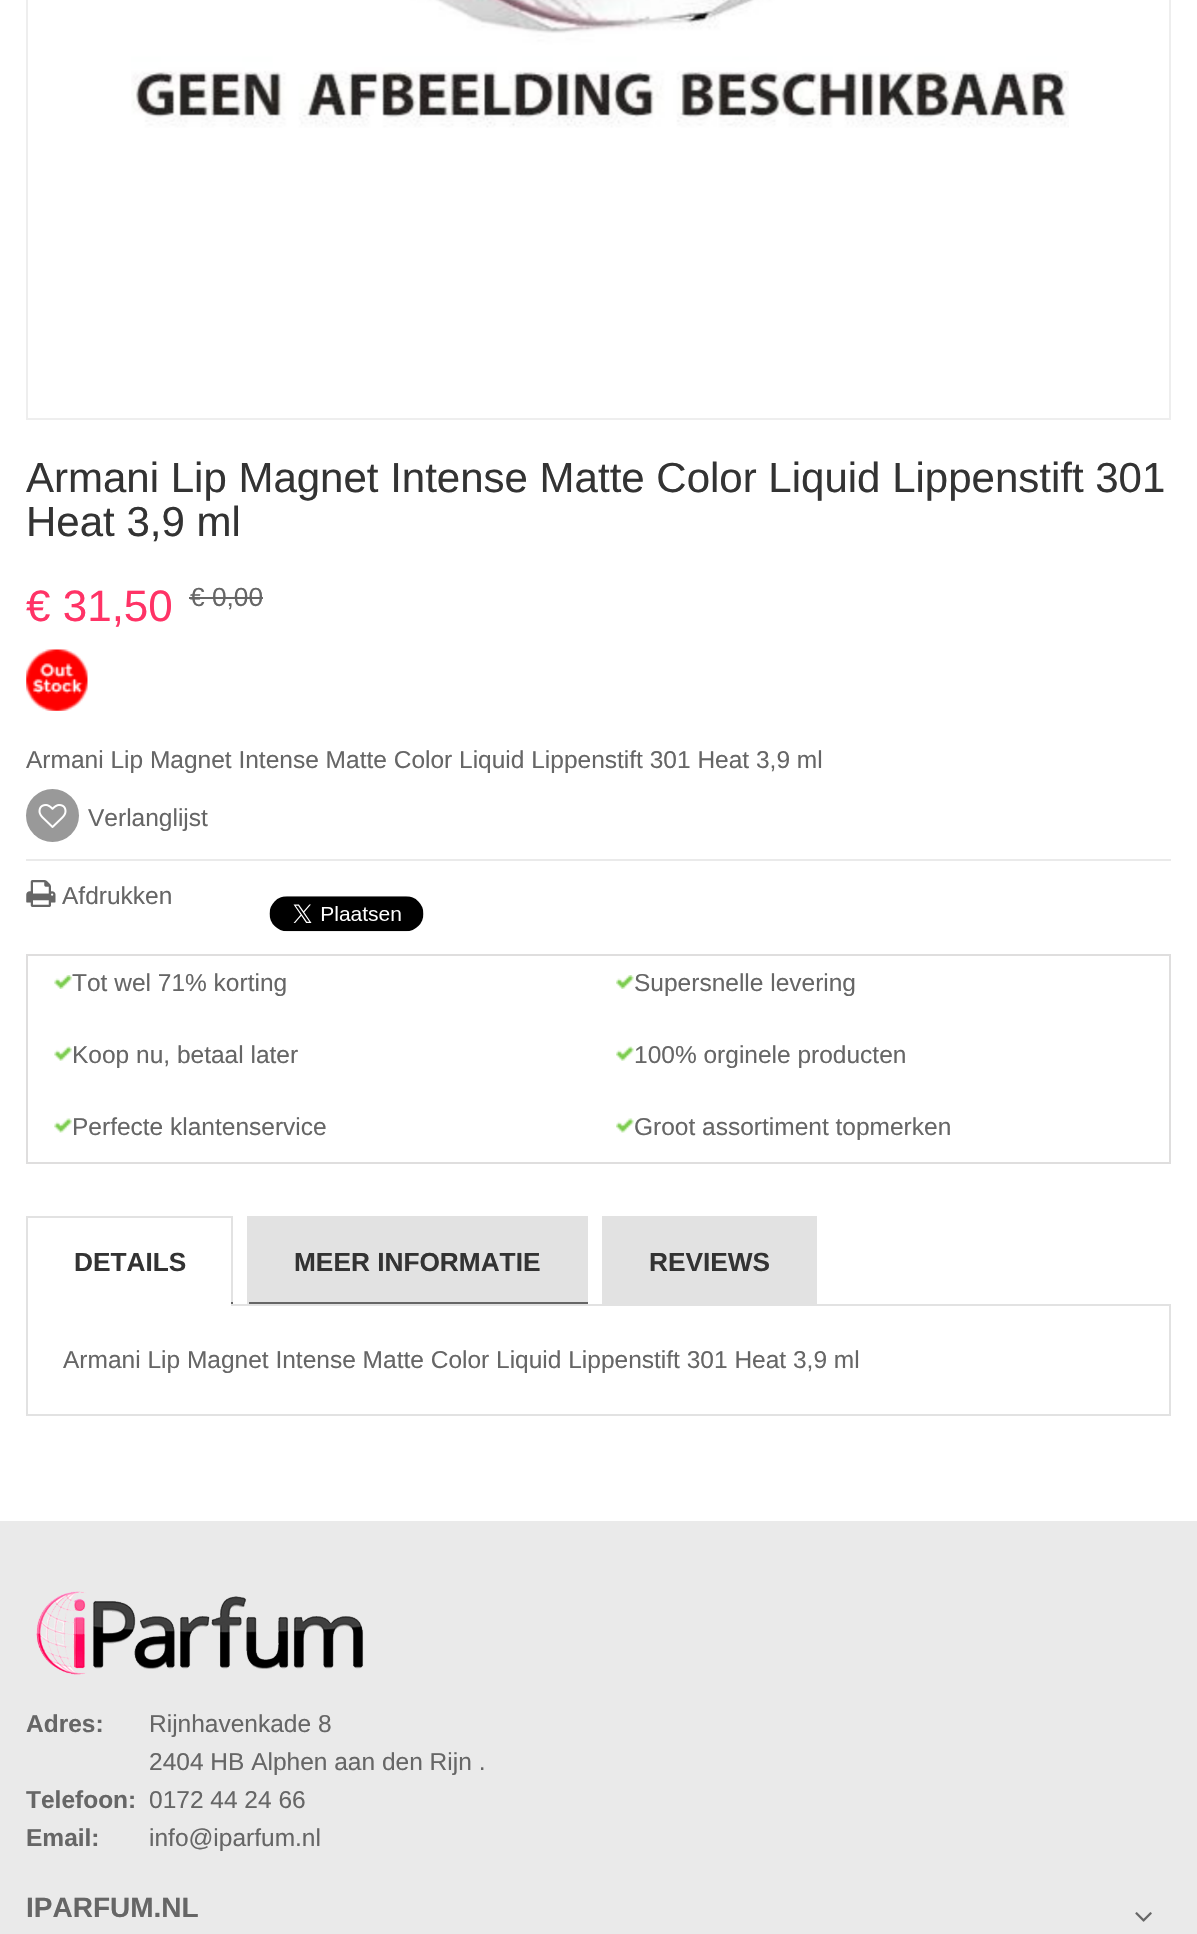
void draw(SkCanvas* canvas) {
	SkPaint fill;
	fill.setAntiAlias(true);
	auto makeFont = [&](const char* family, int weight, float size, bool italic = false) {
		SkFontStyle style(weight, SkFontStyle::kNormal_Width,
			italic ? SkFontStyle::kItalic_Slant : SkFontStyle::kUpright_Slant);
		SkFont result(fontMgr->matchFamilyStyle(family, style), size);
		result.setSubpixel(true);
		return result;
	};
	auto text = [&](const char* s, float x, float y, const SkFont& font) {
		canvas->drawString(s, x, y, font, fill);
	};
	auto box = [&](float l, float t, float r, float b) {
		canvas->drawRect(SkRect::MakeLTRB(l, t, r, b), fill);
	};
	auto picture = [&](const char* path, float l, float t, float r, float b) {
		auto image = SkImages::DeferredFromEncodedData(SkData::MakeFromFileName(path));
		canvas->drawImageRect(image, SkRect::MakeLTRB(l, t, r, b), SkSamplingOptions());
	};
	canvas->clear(0xFFFFFFFF);
	fill.setStyle(SkPaint::kStroke_Style);
	fill.setStrokeWidth(2);
	fill.setColor(0xFFEEEEEE);
	canvas->drawRect(SkRect::MakeLTRB(27, -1, 1170, 419), fill);
	picture("image0.png", 131, 0, 1069, 128);
	fill.setStyle(SkPaint::kFill_Style);
	fill.setColor(0xFF666666);
	box(189, 597, 263, 599);
	picture("image1.png", 26, 649, 88, 711);
	fill.setColor(0xFF999999);
	canvas->drawCircle(52.5f, 815.5f, 26.5f, fill);
	picture("image2.png", 38, 804, 67, 828);
	fill.setColor(0xFFEAEAEA);
	box(26, 859, 1171, 861);
	picture("image3.png", 26, 880, 56, 907);
	picture("image4.png", 269, 896, 424, 932);
	fill.setStyle(SkPaint::kStroke_Style);
	fill.setColor(0xFFDFDEDE);
	canvas->drawRect(SkRect::MakeLTRB(27, 955, 1170, 1163), fill);
	picture("image5.png", 54, 975, 72, 989);
	picture("image6.png", 616, 975, 634, 989);
	picture("image7.png", 54, 1046, 72, 1061);
	picture("image8.png", 616, 1046, 634, 1061);
	picture("image9.png", 54, 1118, 72, 1133);
	picture("image10.png", 616, 1118, 634, 1133);
	fill.setStyle(SkPaint::kFill_Style);
	fill.setColor(0xFFE2E2E2);
	box(28, 1216, 233, 1302);
	fill.setColor(0xFF666666);
	box(231, 1302, 233, 1304);
	fill.setColor(0xFFE2E2E2);
	box(26, 1216, 28, 1304);
	fill.setStyle(SkPaint::kStroke_Style);
	canvas->drawRect(SkRect::MakeLTRB(27, 1305, 1170, 1415), fill);
	fill.setStyle(SkPaint::kFill_Style);
	fill.setColor(0xFFFFFFFF);
	box(28, 1218, 231, 1306);
	fill.setColor(0xFFE2E2E2);
	box(249, 1216, 588, 1302);
	fill.setColor(0xFF666666);
	box(247, 1302, 588, 1304);
	fill.setColor(0xFFE2E2E2);
	box(247, 1216, 249, 1304);
	box(602, 1216, 817, 1304);
	fill.setColor(0xFFEAEAEA);
	box(0, 1521, 1197, 1934);
	picture("image11.png", 36, 1591, 364, 1675);
	picture("image12.png", 1135, 1912, 1152, 1922);
	auto font1 = makeFont("Liberation Sans", 400, 42);
	fill.setColor(0xFF333333);
	text("Armani Lip Magnet Intense Matte Color Liquid Lippenstift 301", 26, 492, font1);
	text("Heat 3,9 ml", 26, 536, font1);
	auto font2 = makeFont("Liberation Sans", 400, 44);
	fill.setColor(0xFFFF3366);
	text("€ 31,50", 26, 621, font2);
	auto font3 = makeFont("Liberation Sans", 400, 26.25f);
	fill.setColor(0xFF666666);
	text("€ 0,00", 190, 606, font3);
	auto font4 = makeFont("Liberation Sans", 400, 24.5f);
	text("Armani Lip Magnet Intense Matte Color Liquid Lippenstift 301 Heat 3,9 ml", 26, 768, font4);
	text("Verlanglijst", 88, 826, font4);
	text("Afdrukken", 62, 904, font4);
	text("Tot wel 71% korting", 72, 991, font4);
	text("Supersnelle levering", 634, 991, font4);
	text("Koop nu, betaal later", 72, 1063, font4);
	text("100% orginele producten", 634, 1063, font4);
	text("Perfecte klantenservice", 72, 1135, font4);
	text("Groot assortiment topmerken", 634, 1135, font4);
	auto font5 = makeFont("Liberation Sans", 700, 26.25f);
	fill.setColor(0xFF333333);
	text("DETAILS", 74, 1271, font5);
	text("MEER INFORMATIE", 294, 1271, font5);
	text("REVIEWS", 649, 1271, font5);
	fill.setColor(0xFF666666);
	text("Armani Lip Magnet Intense Matte Color Liquid Lippenstift 301 Heat 3,9 ml", 63, 1368, font4);
	auto font6 = makeFont("Liberation Sans", 700, 24.5f);
	text("Adres:", 26, 1732, font6);
	text("Rijnhavenkade 8", 149, 1732, font4);
	text("2404 HB Alphen aan den Rijn .", 149, 1770, font4);
	text("Telefoon:", 26, 1808, font6);
	text("0172 44 24 66", 149, 1808, font4);
	text("Email:", 26, 1846, font6);
	text("info@iparfum.nl", 149, 1846, font4);
	auto font7 = makeFont("Liberation Sans", 700, 28);
	text("IPARFUM.NL", 26, 1917, font7);
}
